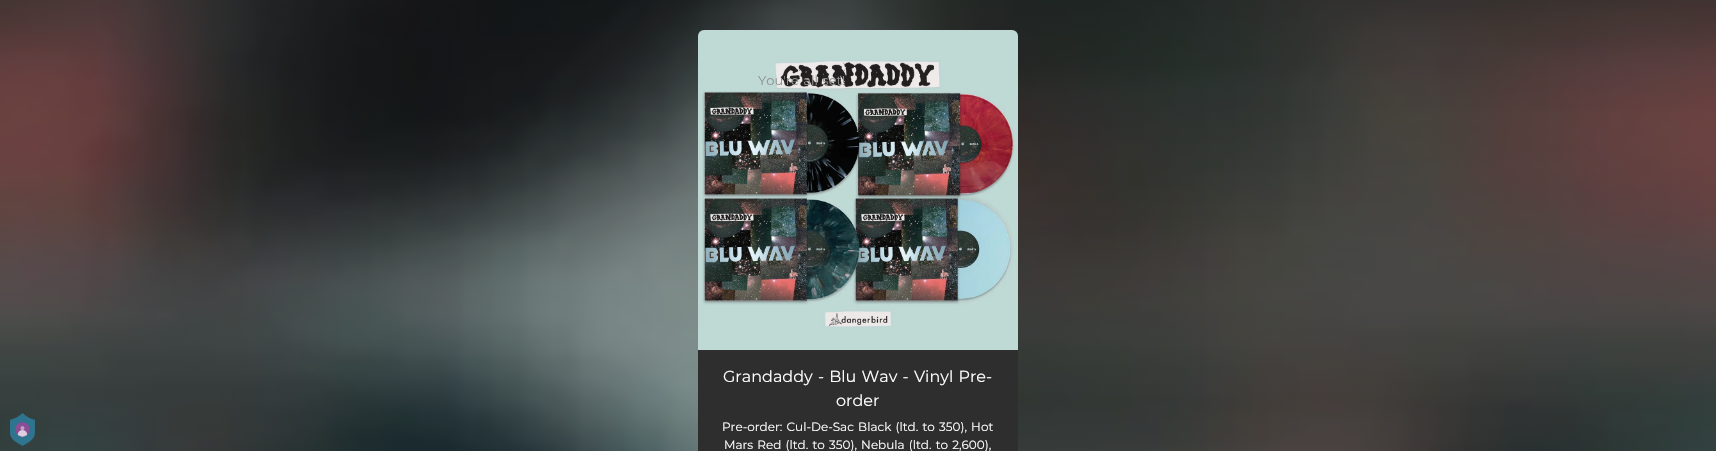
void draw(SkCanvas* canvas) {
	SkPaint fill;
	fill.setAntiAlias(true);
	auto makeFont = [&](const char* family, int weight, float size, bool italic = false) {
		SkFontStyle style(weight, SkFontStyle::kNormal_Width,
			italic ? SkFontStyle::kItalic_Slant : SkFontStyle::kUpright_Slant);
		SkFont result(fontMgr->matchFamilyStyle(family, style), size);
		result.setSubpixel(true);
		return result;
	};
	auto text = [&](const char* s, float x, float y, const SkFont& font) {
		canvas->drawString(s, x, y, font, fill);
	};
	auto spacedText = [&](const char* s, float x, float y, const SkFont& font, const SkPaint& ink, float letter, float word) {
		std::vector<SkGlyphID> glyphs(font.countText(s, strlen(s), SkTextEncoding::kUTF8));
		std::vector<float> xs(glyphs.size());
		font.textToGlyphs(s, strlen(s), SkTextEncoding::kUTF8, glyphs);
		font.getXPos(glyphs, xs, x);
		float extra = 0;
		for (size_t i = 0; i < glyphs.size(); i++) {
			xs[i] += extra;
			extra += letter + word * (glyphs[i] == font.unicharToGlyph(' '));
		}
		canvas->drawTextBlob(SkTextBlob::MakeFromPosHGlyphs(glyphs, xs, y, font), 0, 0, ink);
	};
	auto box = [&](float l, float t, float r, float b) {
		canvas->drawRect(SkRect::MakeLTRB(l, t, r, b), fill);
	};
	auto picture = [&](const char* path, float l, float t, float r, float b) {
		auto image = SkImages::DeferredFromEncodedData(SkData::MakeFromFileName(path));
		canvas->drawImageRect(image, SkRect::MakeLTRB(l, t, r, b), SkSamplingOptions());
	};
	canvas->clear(0xFFFFFFFF);
	picture("image1.png", 0, 0, 1716, 451);
	picture("image0.png", 10, 413, 35, 446);
	picture("image2.png", 698, 30, 1018, 350);
	fill.setColor(0xFF2E2E2E);
	box(698, 350, 1018, 451);
	auto font1 = makeFont("Montserrat", 400, 13);
	fill.setColor(0xFF8F9391);
	spacedText("You're all set!", 758, 85, font1, fill, 0, 1);
	auto font2 = makeFont("Montserrat", 400, 16);
	fill.setColor(0xFFFFFFFF);
	spacedText("Grandaddy - Blu Wav - Vinyl Pre-", 723, 382, font2, fill, 0, 1);
	text("order", 836, 406, font2);
	auto font3 = makeFont("Montserrat", 400, 12);
	spacedText("Pre-order: Cul-De-Sac Black (ltd. to 350), Hot", 722, 431, font3, fill, 0, 1);
	spacedText("Mars Red (ltd. to 350), Nebula (ltd. to 2,600),", 724, 449, font3, fill, 0, 1);
}
